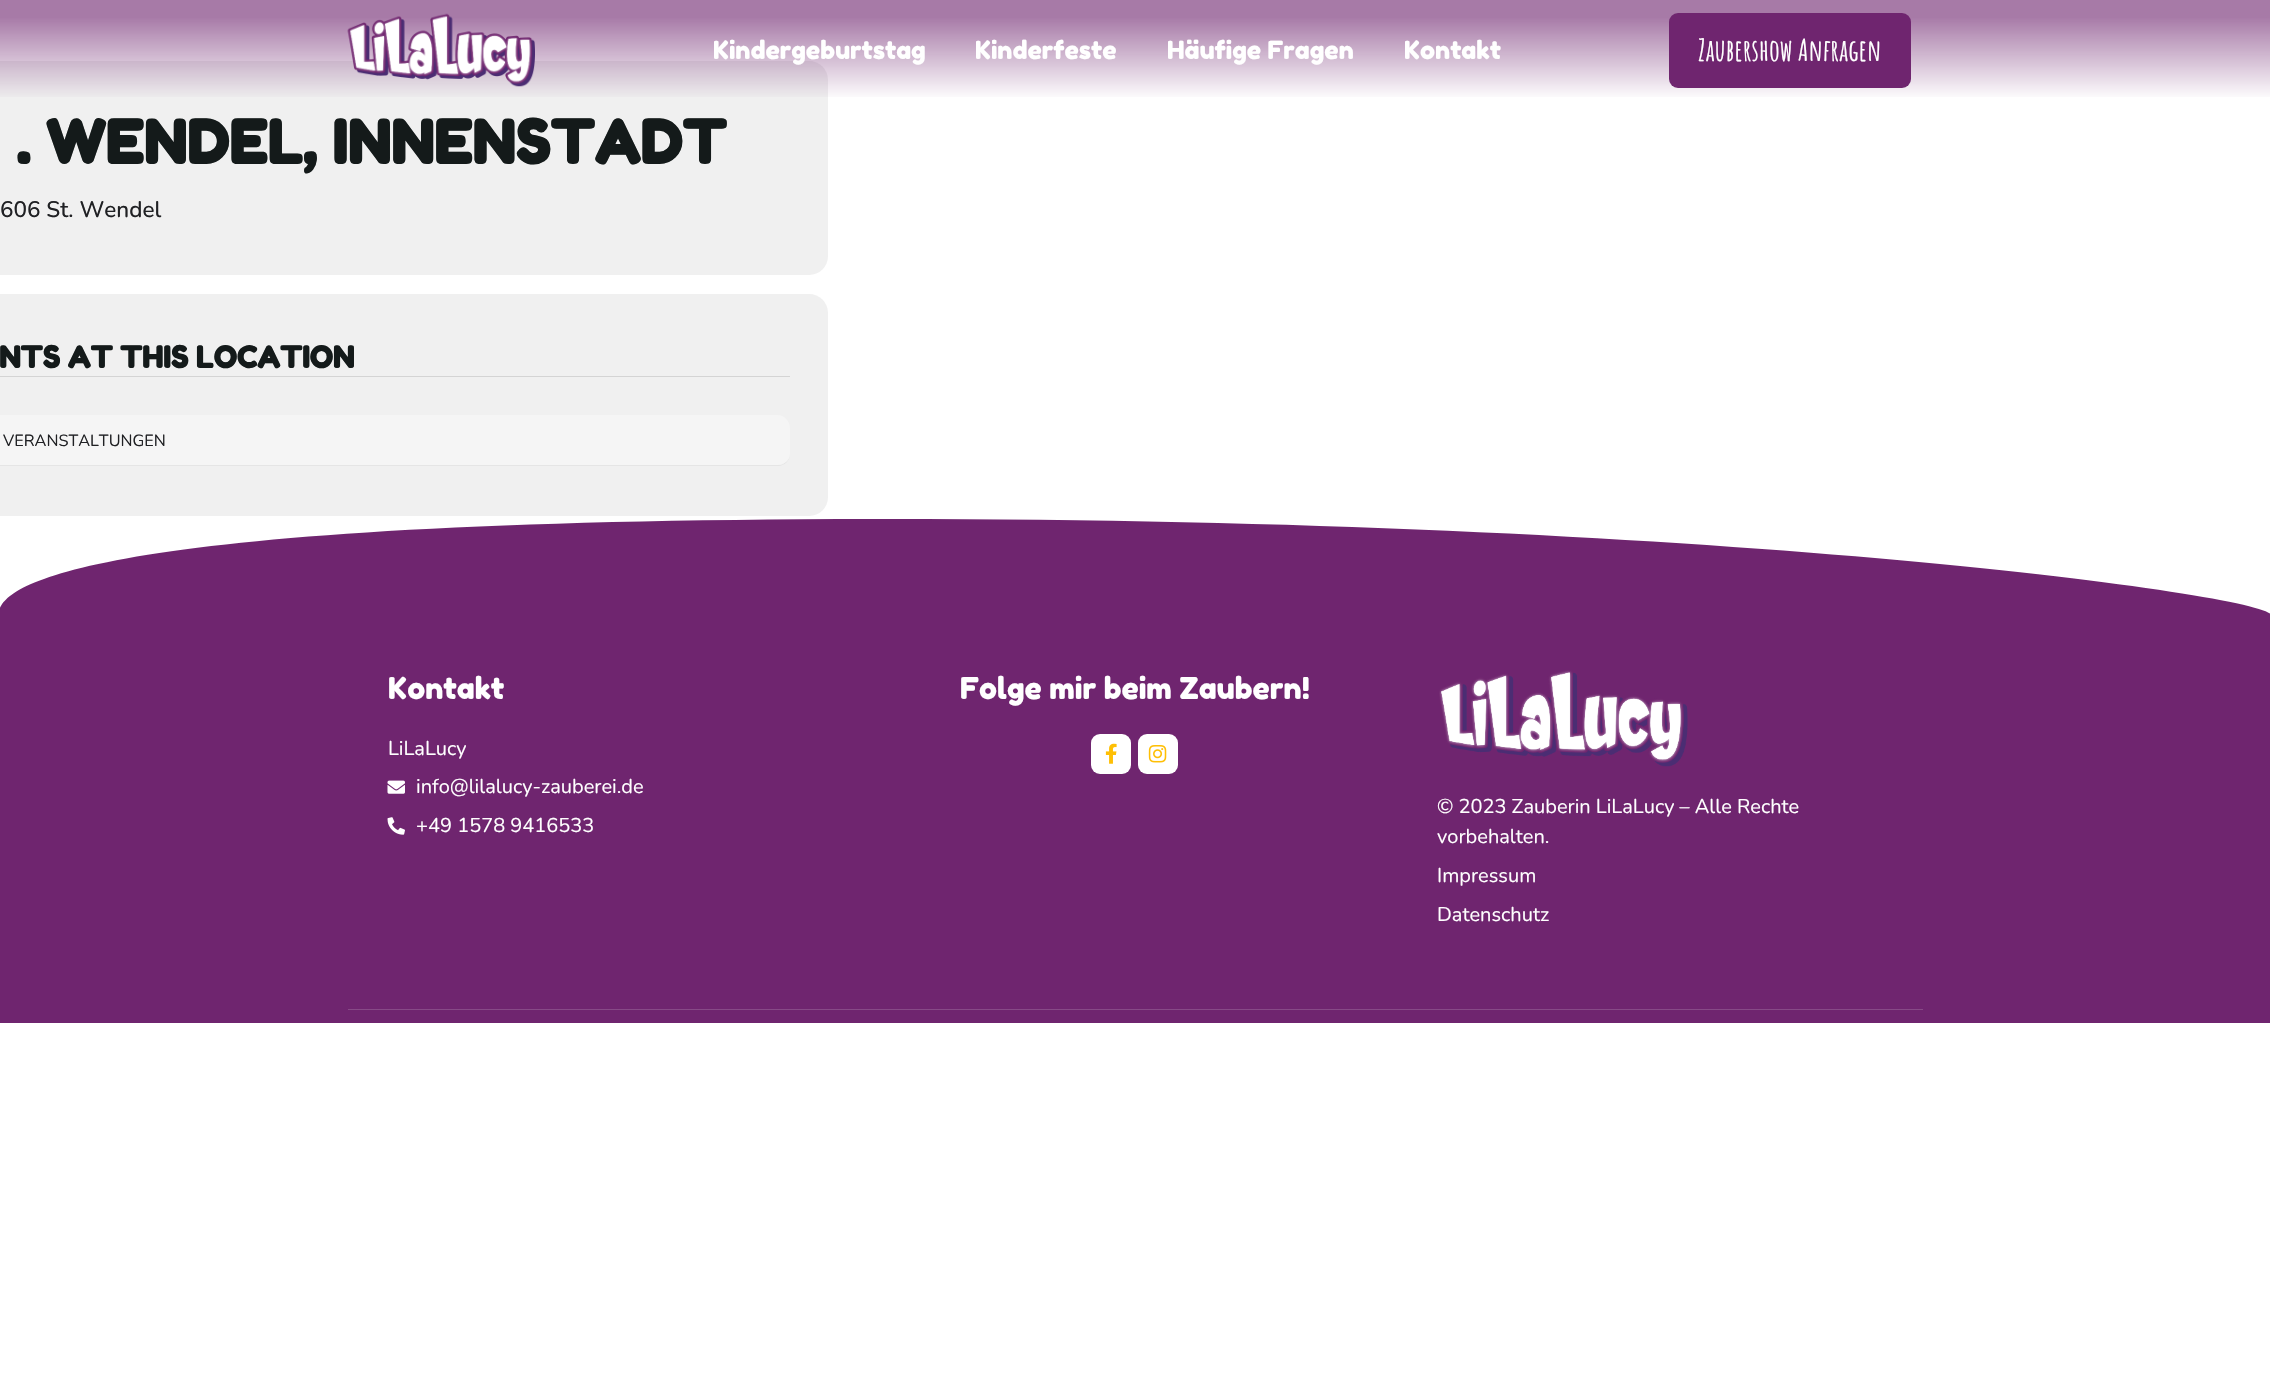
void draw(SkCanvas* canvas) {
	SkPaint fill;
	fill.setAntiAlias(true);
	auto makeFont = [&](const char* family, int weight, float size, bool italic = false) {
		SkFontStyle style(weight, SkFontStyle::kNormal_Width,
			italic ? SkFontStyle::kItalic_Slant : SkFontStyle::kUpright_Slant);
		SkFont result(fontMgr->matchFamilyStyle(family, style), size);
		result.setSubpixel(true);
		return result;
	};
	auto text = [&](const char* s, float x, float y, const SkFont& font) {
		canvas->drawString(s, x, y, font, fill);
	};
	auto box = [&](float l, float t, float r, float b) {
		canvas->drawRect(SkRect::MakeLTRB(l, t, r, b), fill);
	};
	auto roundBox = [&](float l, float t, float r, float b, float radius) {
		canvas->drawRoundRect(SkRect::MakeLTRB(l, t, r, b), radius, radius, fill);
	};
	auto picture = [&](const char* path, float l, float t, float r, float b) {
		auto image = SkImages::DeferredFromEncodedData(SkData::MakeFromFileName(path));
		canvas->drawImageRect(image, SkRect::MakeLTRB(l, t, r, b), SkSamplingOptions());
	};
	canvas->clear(0xFFFFFFFF);
	fill.setColor(0xFFF0F0F0);
	roundBox(-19, 61, 828, 275, 19);
	{
		const SkColor colors[] = {0x9C6F256F, 0x006F256F};
		const float stops[] = {0.17f, 1};
		const SkPoint ends[] = {{1135, 0}, {1135, 100}};
		fill.setShader(SkGradientShader::MakeLinear(ends, colors, stops, 2, SkTileMode::kClamp));
		fill.setAlpha(255);
	}
	box(0, 0, 2270, 97);
	picture("image0.png", 347, 13, 535, 87);
	fill.setShader(nullptr);
	fill.setColor(0xFF6F256F);
	roundBox(1669, 13, 1911, 88, 9);
	fill.setColor(0xFFF0F0F0);
	roundBox(-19, 294, 828, 516, 19);
	fill.setColor(0xFFD4D4D4);
	box(0, 376, 790, 377);
	fill.setColor(0xFFE5E5E5);
	canvas->drawPath(SkPathBuilder(SkPathFillType::kEvenOdd).moveTo(-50, 415).lineTo(778, 415).cubicTo(784, 415, 790, 421, 790, 428).lineTo(790, 454).cubicTo(790, 461, 784, 466, 778, 466).lineTo(-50, 466).cubicTo(-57, 466, -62, 461, -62, 454).lineTo(-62, 428).cubicTo(-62, 421, -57, 415, -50, 415).close().moveTo(-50, 415).lineTo(778, 415).cubicTo(784, 415, 790, 421, 790, 428).lineTo(790, 454).cubicTo(790, 460, 784, 465, 778, 465).lineTo(-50, 465).cubicTo(-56, 465, -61, 460, -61, 454).lineTo(-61, 428).cubicTo(-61, 421, -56, 415, -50, 415).close().detach(), fill);
	fill.setColor(0xFFF5F5F5);
	canvas->drawPath(SkPathBuilder().moveTo(-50, 415).cubicTo(-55, 415, -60, 419, -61, 425).lineTo(-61, 456).cubicTo(-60, 461, -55, 465, -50, 465).lineTo(778, 465).cubicTo(784, 465, 790, 460, 790, 454).lineTo(790, 428).cubicTo(790, 421, 784, 415, 778, 415).close().detach(), fill);
	fill.setColor(0xFF6F256F);
	box(0, 519, 2270, 1023);
	fill.setColor(0xFFFFFFFF);
	canvas->drawPath(SkPathBuilder().moveTo(873, 519).cubicTo(1725, 518, 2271, 596, 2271, 615).lineTo(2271, 516).lineTo(-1, 516).lineTo(-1, 615).cubicTo(-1, 596, 22, 520, 873, 519).close().detach(), fill);
	fill.setColor(0xFF874A87);
	box(348, 1009, 1923, 1010);
	picture("image1.png", 387, 780, 405, 794);
	picture("image2.png", 387, 817, 405, 835);
	fill.setColor(0xFFFFFFFF);
	roundBox(1091, 734, 1131, 774, 9);
	picture("image3.png", 1105, 743, 1117, 764);
	roundBox(1138, 734, 1178, 774, 9);
	picture("image4.png", 1148, 745, 1167, 763);
	picture("image5.png", 1439, 670, 1688, 767);
	auto font1 = makeFont("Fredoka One", 400, 25);
	text("Kindergeburtstag", 713, 59, font1);
	text("Kinderfeste", 975, 59, font1);
	text("Häufige Fragen", 1167, 59, font1);
	text("Kontakt", 1404, 59, font1);
	auto font2 = makeFont("Amatic SC", 700, 30);
	text("Zaubershow Anfragen", 1698, 61, font2);
	auto font3 = makeFont("Fredoka One", 700, 60);
	fill.setColor(0xFF141A1A);
	text(". WENDEL, INNENSTADT", 16, 164, font3);
	auto font4 = makeFont("Nunito", 500, 22.5f);
	fill.setColor(0xFF202124);
	text("606 St. Wendel", 0, 217, font4);
	auto font5 = makeFont("Fredoka One", 700, 30);
	fill.setColor(0xFF141A1A);
	text("NTS AT THIS LOCATION", -1, 368, font5);
	auto font6 = makeFont("Nunito", 400, 16.25f);
	fill.setColor(0xFF202124);
	text("VERANSTALTUNGEN", 3, 446, font6);
	auto font7 = makeFont("Fredoka One", 400, 30);
	fill.setColor(0xFFFFFFFF);
	text("Kontakt", 388, 699, font7);
	auto font8 = makeFont("Nunito", 400, 20);
	text("LiLaLucy", 388, 755, font8);
	text("info@lilalucy-zauberei.de", 416, 793, font8);
	text("+49 1578 9416533", 416, 832, font8);
	text("Folge mir beim Zaubern!", 960, 699, font7);
	text("© 2023 Zauberin LiLaLucy – Alle Rechte", 1437, 813, font8);
	text("vorbehalten.", 1437, 843, font8);
	text("Impressum", 1437, 882, font8);
	text("Datenschutz", 1437, 921, font8);
}
